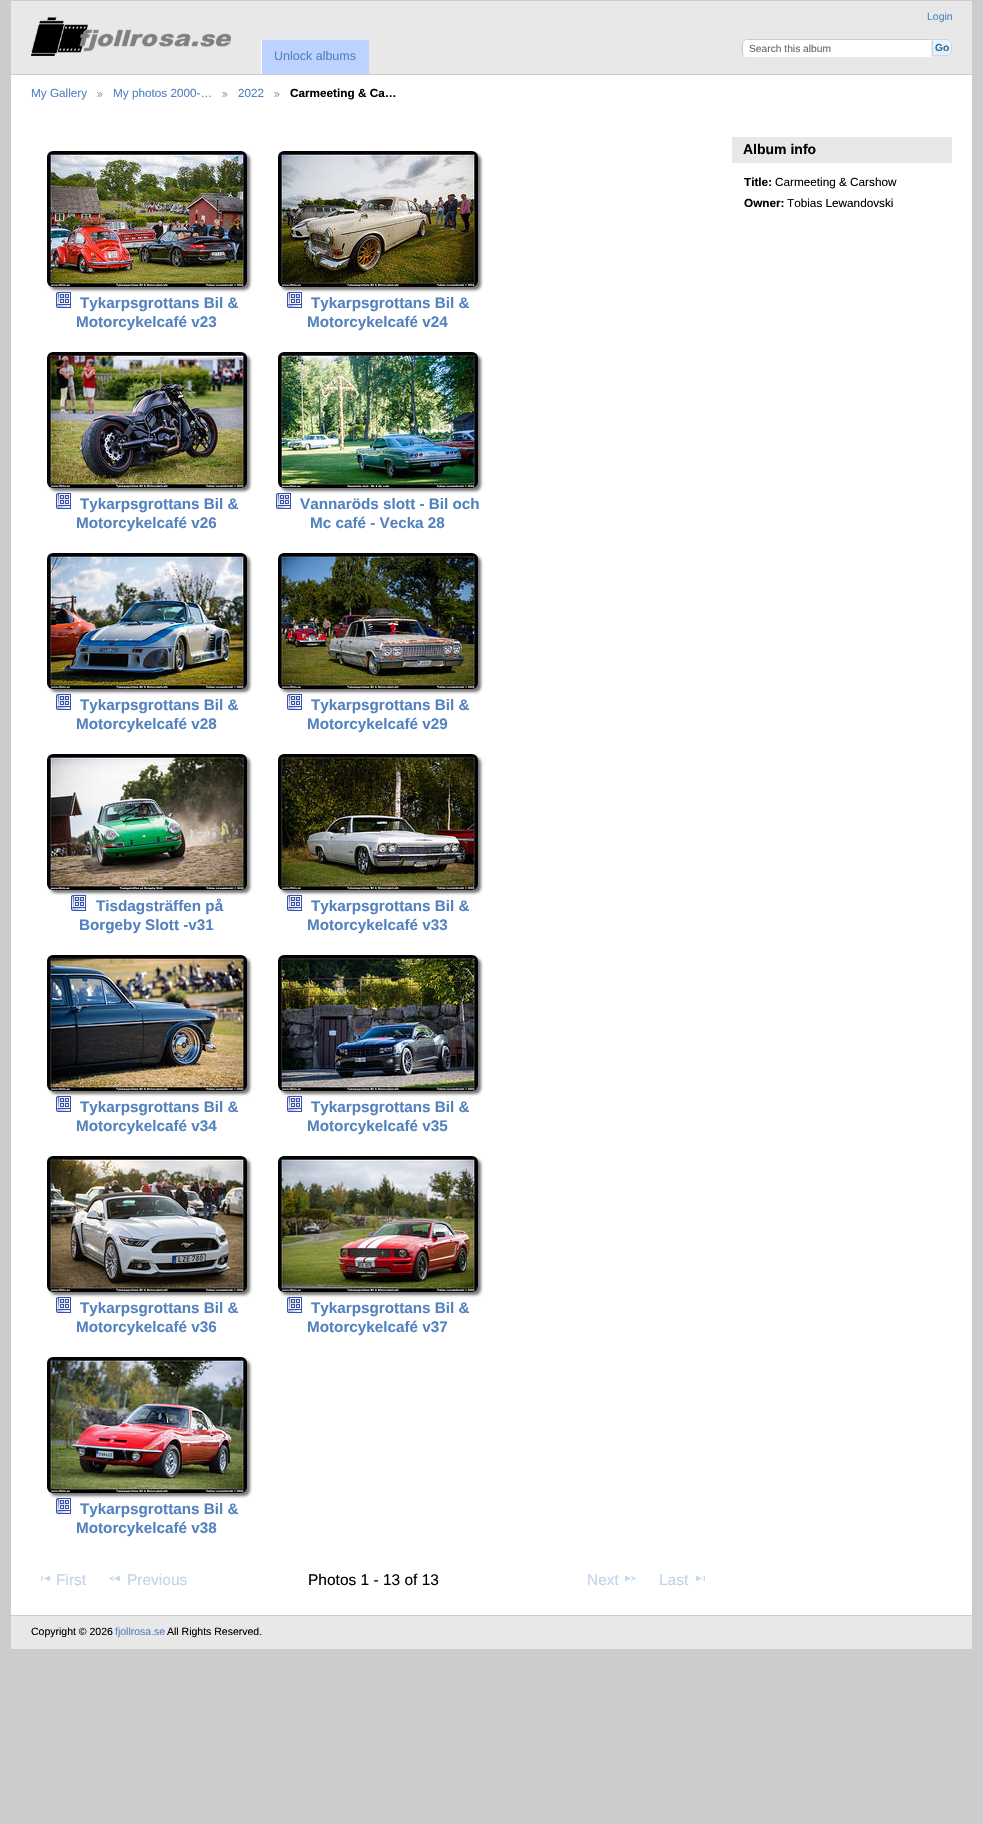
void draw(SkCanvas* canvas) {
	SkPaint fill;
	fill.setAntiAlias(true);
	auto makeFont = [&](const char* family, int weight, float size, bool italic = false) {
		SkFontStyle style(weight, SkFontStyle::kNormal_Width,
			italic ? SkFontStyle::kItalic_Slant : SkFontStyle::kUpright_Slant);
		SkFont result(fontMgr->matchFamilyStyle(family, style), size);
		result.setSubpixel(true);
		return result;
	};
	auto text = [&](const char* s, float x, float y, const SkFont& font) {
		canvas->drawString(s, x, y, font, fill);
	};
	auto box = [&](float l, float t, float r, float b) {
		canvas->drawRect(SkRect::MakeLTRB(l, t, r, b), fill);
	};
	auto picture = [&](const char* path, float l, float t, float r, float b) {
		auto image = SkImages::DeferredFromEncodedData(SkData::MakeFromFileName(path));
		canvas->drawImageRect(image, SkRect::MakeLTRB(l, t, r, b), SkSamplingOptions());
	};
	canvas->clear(0xFFCCCCCC);
	fill.setColor(0xFFFFFFFF);
	box(11, 75, 972, 1615);
	fill.setColor(0xFFE8E8E8);
	box(11, 1, 972, 74);
	picture("image0.png", 31, 17, 231, 56);
	fill.setColor(0xFFFFFFFF);
	canvas->drawPath(SkPathBuilder().moveTo(747, 39).lineTo(932, 39).lineTo(932, 58).lineTo(747, 58).cubicTo(744, 58, 742, 56, 742, 53).lineTo(742, 44).cubicTo(742, 41, 744, 39, 747, 39).close().detach(), fill);
	fill.setColor(0xFFCCCCCC);
	canvas->drawPath(SkPathBuilder().moveTo(747, 39).cubicTo(746, 39, 744, 40, 743, 40).lineTo(744, 41).cubicTo(745, 40, 746, 40, 747, 40).lineTo(931, 40).lineTo(932, 39).close().detach(), fill);
	fill.setColor(0xFFE8E8E8);
	canvas->drawPath(SkPathBuilder().moveTo(932, 39).lineTo(931, 40).lineTo(931, 57).lineTo(932, 58).close().detach(), fill);
	canvas->drawPath(SkPathBuilder().moveTo(932, 58).lineTo(931, 57).lineTo(746, 57).lineTo(744, 56).lineTo(743, 57).cubicTo(744, 58, 746, 58, 747, 58).close().detach(), fill);
	fill.setColor(0xFFCCCCCC);
	canvas->drawPath(SkPathBuilder().moveTo(742, 44).cubicTo(742, 47, 741, 54.5f, 743.5f, 56.5f).lineTo(744, 56).lineTo(743, 54).lineTo(743, 43.5f).cubicTo(743, 42.5f, 743.5f, 41.5f, 744, 41).lineTo(743.5f, 40.5f).cubicTo(742.5f, 41, 742, 42.5f, 742, 44).close().detach(), fill);
	picture("image1.png", 933, 39, 952, 56);
	fill.setStyle(SkPaint::kStroke_Style);
	fill.setStrokeWidth(1);
	fill.setColor(0xFFC5DBEC);
	canvas->drawPath(SkPathBuilder().moveTo(932.5f, 39.5f).lineTo(947, 39.5f).cubicTo(949.5f, 39.5f, 951.5f, 41.5f, 951.5f, 44).lineTo(951.5f, 51).cubicTo(951.5f, 53.5f, 949.5f, 55.5f, 947, 55.5f).lineTo(932.5f, 55.5f).close().detach(), fill);
	fill.setStyle(SkPaint::kFill_Style);
	fill.setColor(0xFFBDD2FF);
	box(261, 39, 369, 74);
	fill.setColor(0xFFDEE9FF);
	canvas->drawPath(SkPathBuilder().moveTo(261, 39).lineTo(369, 39).lineTo(369, 40).lineTo(262, 40).close().detach(), fill);
	fill.setColor(0xFFFFFFFF);
	canvas->drawPath(SkPathBuilder().moveTo(261, 74).lineTo(261, 39).lineTo(262, 40).lineTo(262, 74).close().detach(), fill);
	picture("image2.png", 97, 92, 103, 97);
	picture("image2.png", 222, 92, 228, 97);
	picture("image2.png", 274, 92, 280, 97);
	fill.setColor(0xFFE8E8E8);
	box(732, 137, 952, 163);
	fill.setColor(0xFF777777);
	fill.setMaskFilter(SkMaskFilter::MakeBlur(kNormal_SkBlurStyle, 1.5f));
	canvas->drawRoundRect(SkRect::MakeLTRB(50, 154, 250, 290), 6, 6, fill);
	fill.setMaskFilter(nullptr);
	picture("image3.png", 47, 151, 247, 287);
	picture("image4.png", 56, 292, 71, 308);
	fill.setMaskFilter(SkMaskFilter::MakeBlur(kNormal_SkBlurStyle, 1.5f));
	canvas->drawRoundRect(SkRect::MakeLTRB(281, 154, 481, 290), 6, 6, fill);
	fill.setMaskFilter(nullptr);
	picture("image5.png", 278, 151, 478, 287);
	picture("image4.png", 287, 292, 302, 308);
	fill.setMaskFilter(SkMaskFilter::MakeBlur(kNormal_SkBlurStyle, 1.5f));
	canvas->drawRoundRect(SkRect::MakeLTRB(50, 355, 250, 491), 6, 6, fill);
	fill.setMaskFilter(nullptr);
	picture("image6.png", 47, 352, 247, 488);
	picture("image4.png", 56, 493, 71, 509);
	fill.setMaskFilter(SkMaskFilter::MakeBlur(kNormal_SkBlurStyle, 1.5f));
	canvas->drawRoundRect(SkRect::MakeLTRB(281, 355, 481, 491), 6, 6, fill);
	fill.setMaskFilter(nullptr);
	picture("image7.png", 278, 352, 478, 488);
	picture("image8.png", 276, 493, 291, 509);
	fill.setMaskFilter(SkMaskFilter::MakeBlur(kNormal_SkBlurStyle, 1.5f));
	canvas->drawRoundRect(SkRect::MakeLTRB(50, 556, 250, 692), 6, 6, fill);
	fill.setMaskFilter(nullptr);
	picture("image9.png", 47, 553, 247, 689);
	picture("image4.png", 56, 694, 71, 710);
	fill.setMaskFilter(SkMaskFilter::MakeBlur(kNormal_SkBlurStyle, 1.5f));
	canvas->drawRoundRect(SkRect::MakeLTRB(281, 556, 481, 692), 6, 6, fill);
	fill.setMaskFilter(nullptr);
	picture("image10.png", 278, 553, 478, 689);
	picture("image4.png", 287, 694, 302, 710);
	fill.setMaskFilter(SkMaskFilter::MakeBlur(kNormal_SkBlurStyle, 1.5f));
	canvas->drawRoundRect(SkRect::MakeLTRB(50, 757, 250, 893), 6, 6, fill);
	fill.setMaskFilter(nullptr);
	picture("image11.png", 47, 754, 247, 890);
	picture("image12.png", 71, 895, 86, 911);
	fill.setMaskFilter(SkMaskFilter::MakeBlur(kNormal_SkBlurStyle, 1.5f));
	canvas->drawRoundRect(SkRect::MakeLTRB(281, 757, 481, 893), 6, 6, fill);
	fill.setMaskFilter(nullptr);
	picture("image13.png", 278, 754, 478, 890);
	picture("image4.png", 287, 895, 302, 911);
	fill.setMaskFilter(SkMaskFilter::MakeBlur(kNormal_SkBlurStyle, 1.5f));
	canvas->drawRoundRect(SkRect::MakeLTRB(50, 958, 250, 1094), 6, 6, fill);
	fill.setMaskFilter(nullptr);
	picture("image14.png", 47, 955, 247, 1091);
	picture("image4.png", 56, 1096, 71, 1112);
	fill.setMaskFilter(SkMaskFilter::MakeBlur(kNormal_SkBlurStyle, 1.5f));
	canvas->drawRoundRect(SkRect::MakeLTRB(281, 958, 481, 1094), 6, 6, fill);
	fill.setMaskFilter(nullptr);
	picture("image15.png", 278, 955, 478, 1091);
	picture("image4.png", 287, 1096, 302, 1112);
	fill.setMaskFilter(SkMaskFilter::MakeBlur(kNormal_SkBlurStyle, 1.5f));
	canvas->drawRoundRect(SkRect::MakeLTRB(50, 1159, 250, 1295), 6, 6, fill);
	fill.setMaskFilter(nullptr);
	picture("image16.png", 47, 1156, 247, 1292);
	picture("image4.png", 56, 1297, 71, 1313);
	fill.setMaskFilter(SkMaskFilter::MakeBlur(kNormal_SkBlurStyle, 1.5f));
	canvas->drawRoundRect(SkRect::MakeLTRB(281, 1159, 481, 1295), 6, 6, fill);
	fill.setMaskFilter(nullptr);
	picture("image17.png", 278, 1156, 478, 1292);
	picture("image4.png", 287, 1297, 302, 1313);
	fill.setMaskFilter(SkMaskFilter::MakeBlur(kNormal_SkBlurStyle, 1.5f));
	canvas->drawRoundRect(SkRect::MakeLTRB(50, 1360, 250, 1496), 6, 6, fill);
	fill.setMaskFilter(nullptr);
	picture("image18.png", 47, 1357, 247, 1493);
	picture("image4.png", 56, 1498, 71, 1514);
	picture("image19.png", 41, 1576, 50, 1581);
	picture("image20.png", 109, 1576, 120, 1581);
	picture("image21.png", 625, 1576, 636, 1581);
	picture("image22.png", 696, 1576, 705, 1581);
	fill.setColor(0xFFE8E8E8);
	box(11, 1616, 972, 1649);
	auto font1 = makeFont("Liberation Sans", 400, 10.5f);
	fill.setColor(0xFF5382BF);
	text("Login", 927, 20, font1);
	auto font2 = makeFont("Liberation Sans", 400, 10.25f);
	fill.setColor(0xFF666666);
	text("Search this album", 749, 52, font2);
	auto font3 = makeFont("Liberation Sans", 700, 10.25f);
	fill.setColor(0xFF2E6E9E);
	text("Go", 935, 51, font3);
	auto font4 = makeFont("Liberation Sans", 400, 12.5f);
	fill.setColor(0xFF5382BF);
	text("Unlock albums", 274, 60, font4);
	auto font5 = makeFont("Liberation Sans", 400, 11.75f);
	text("My Gallery", 31, 97, font5);
	text("My photos 2000-…", 113, 97, font5);
	text("2022", 238, 97, font5);
	auto font6 = makeFont("Liberation Sans", 700, 11.75f);
	fill.setColor(0xFF000000);
	text("Carmeeting & Ca…", 290, 97, font6);
	auto font7 = makeFont("Liberation Sans", 700, 14);
	text("Album info", 743, 154, font7);
	text("Title:", 744, 186, font6);
	text("Carmeeting & Carshow", 775, 186, font5);
	text("Owner:", 744, 207, font6);
	text("Tobias Lewandovski", 787, 207, font5);
	auto font8 = makeFont("Liberation Sans", 700, 15.25f);
	fill.setColor(0xFF5382BF);
	text("Tykarpsgrottans Bil &", 80, 308, font8);
	text("Motorcykelcafé v23", 76, 327, font8);
	text("Tykarpsgrottans Bil &", 311, 308, font8);
	text("Motorcykelcafé v24", 307, 327, font8);
	text("Tykarpsgrottans Bil &", 80, 509, font8);
	text("Motorcykelcafé v26", 76, 528, font8);
	text("Vannaröds slott - Bil och", 300, 509, font8);
	text("Mc café - Vecka 28", 310, 528, font8);
	text("Tykarpsgrottans Bil &", 80, 710, font8);
	text("Motorcykelcafé v28", 76, 729, font8);
	text("Tykarpsgrottans Bil &", 311, 710, font8);
	text("Motorcykelcafé v29", 307, 729, font8);
	text("Tisdagsträffen på", 96, 911, font8);
	text("Borgeby Slott -v31", 79, 930, font8);
	text("Tykarpsgrottans Bil &", 311, 911, font8);
	text("Motorcykelcafé v33", 307, 930, font8);
	text("Tykarpsgrottans Bil &", 80, 1112, font8);
	text("Motorcykelcafé v34", 76, 1131, font8);
	text("Tykarpsgrottans Bil &", 311, 1112, font8);
	text("Motorcykelcafé v35", 307, 1131, font8);
	text("Tykarpsgrottans Bil &", 80, 1313, font8);
	text("Motorcykelcafé v36", 76, 1332, font8);
	text("Tykarpsgrottans Bil &", 311, 1313, font8);
	text("Motorcykelcafé v37", 307, 1332, font8);
	text("Tykarpsgrottans Bil &", 80, 1514, font8);
	text("Motorcykelcafé v38", 76, 1533, font8);
	auto font9 = makeFont("Liberation Sans", 400, 15.5f);
	fill.setColor(0xFFC3D3E9);
	text("First", 56, 1585, font9);
	text("Previous", 127, 1585, font9);
	fill.setColor(0xFF000000);
	text("Photos 1 - 13 of 13", 308, 1585, font9);
	fill.setColor(0xFFC3D3E9);
	text("Next", 587, 1585, font9);
	text("Last", 659, 1585, font9);
	fill.setColor(0xFF000000);
	text("Copyright © 2026", 31, 1635, font1);
	fill.setColor(0xFF5382BF);
	text("fjollrosa.se", 115, 1635, font1);
	fill.setColor(0xFF000000);
	text("All Rights Reserved.", 167, 1635, font1);
}
